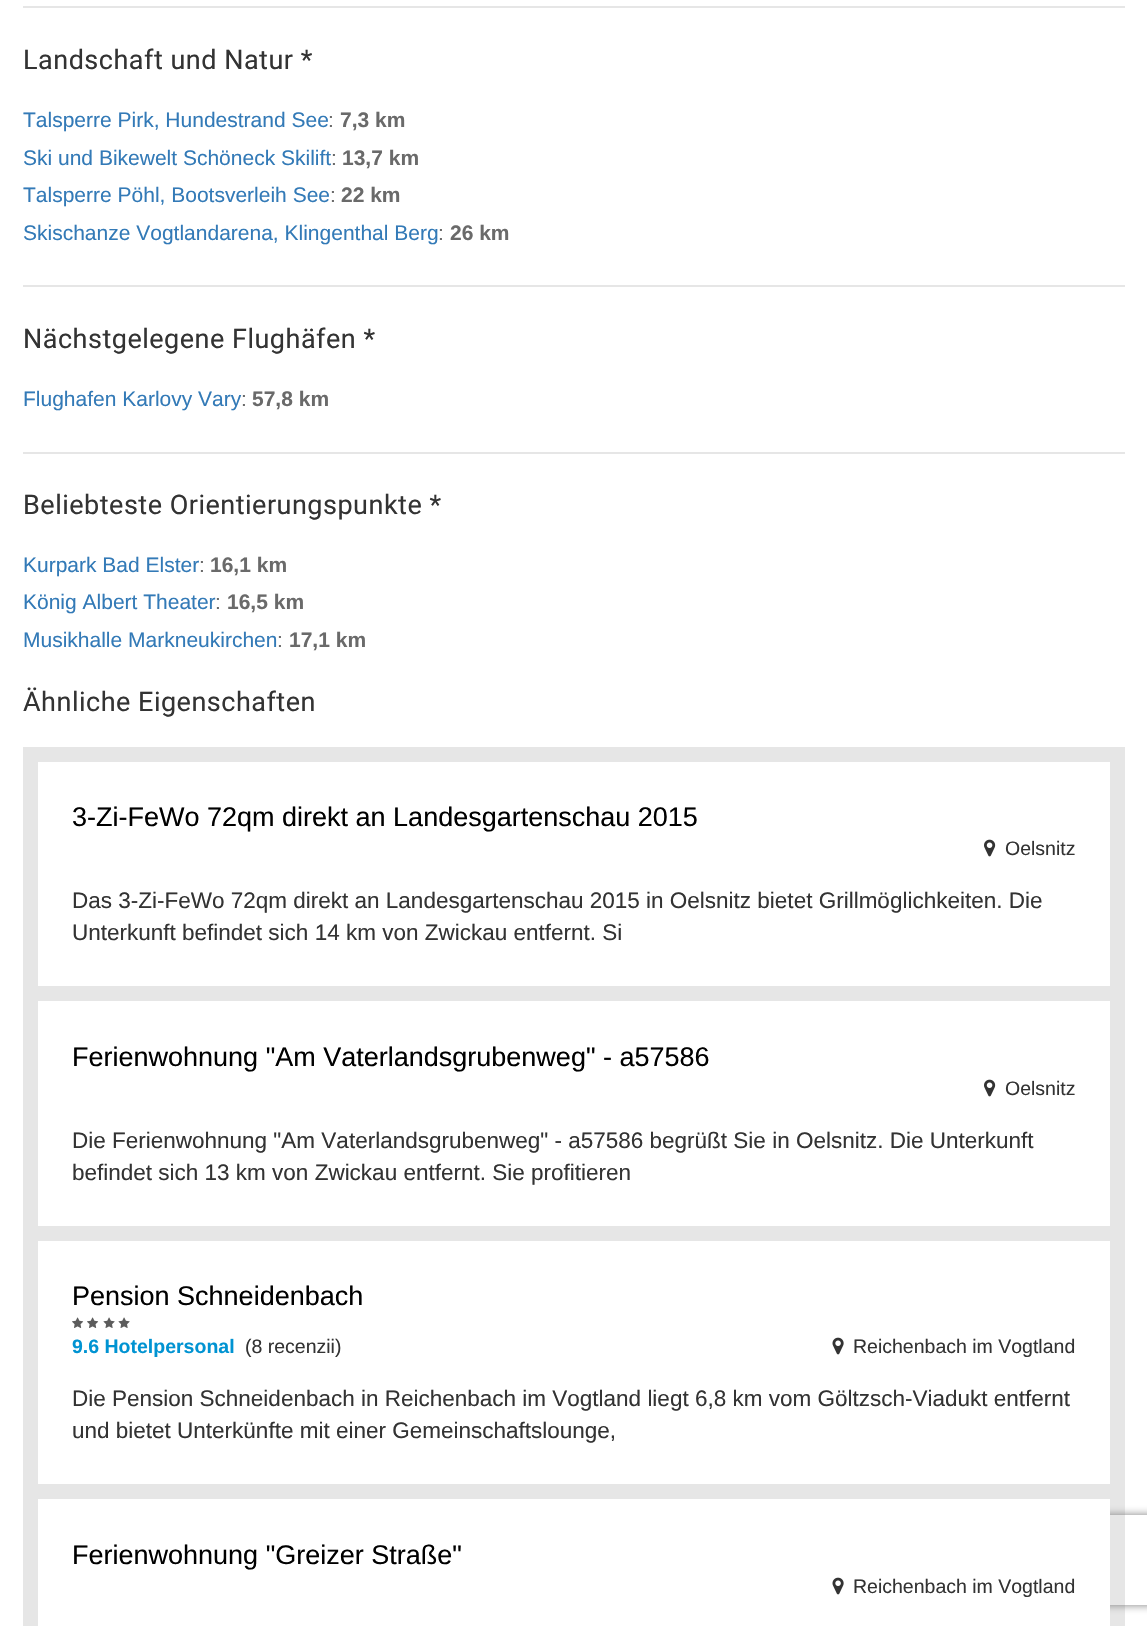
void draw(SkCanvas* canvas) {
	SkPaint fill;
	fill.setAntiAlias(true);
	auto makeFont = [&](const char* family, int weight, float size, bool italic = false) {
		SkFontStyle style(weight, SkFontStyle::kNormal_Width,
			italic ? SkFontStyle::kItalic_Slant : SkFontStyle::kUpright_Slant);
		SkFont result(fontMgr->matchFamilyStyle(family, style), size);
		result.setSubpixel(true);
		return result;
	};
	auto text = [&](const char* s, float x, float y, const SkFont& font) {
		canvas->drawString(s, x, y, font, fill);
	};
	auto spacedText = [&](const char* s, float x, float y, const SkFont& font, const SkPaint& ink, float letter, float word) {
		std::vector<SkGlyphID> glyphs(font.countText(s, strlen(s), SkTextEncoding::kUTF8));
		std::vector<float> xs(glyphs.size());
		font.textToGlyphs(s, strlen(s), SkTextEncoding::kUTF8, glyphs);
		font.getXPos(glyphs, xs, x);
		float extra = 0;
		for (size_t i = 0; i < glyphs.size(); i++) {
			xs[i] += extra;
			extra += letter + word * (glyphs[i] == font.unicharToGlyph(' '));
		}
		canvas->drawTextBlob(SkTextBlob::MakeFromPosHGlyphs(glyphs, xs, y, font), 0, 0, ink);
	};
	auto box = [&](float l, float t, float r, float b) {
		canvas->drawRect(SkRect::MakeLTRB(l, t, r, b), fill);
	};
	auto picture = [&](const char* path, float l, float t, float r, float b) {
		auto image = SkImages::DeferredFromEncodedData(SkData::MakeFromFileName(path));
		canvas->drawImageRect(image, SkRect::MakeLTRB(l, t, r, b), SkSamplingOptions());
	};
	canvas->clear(0xFFFFFFFF);
	fill.setColor(0xFFE6E6E6);
	box(23, 6, 1125, 8);
	box(23, 285, 1125, 287);
	box(23, 452, 1125, 454);
	box(23, 747, 1125, 1626);
	fill.setColor(0xFFFFFFFF);
	box(38, 762, 1110, 986);
	picture("image0.png", 984, 839, 996, 857);
	box(38, 1001, 1110, 1226);
	picture("image0.png", 984, 1079, 996, 1097);
	box(38, 1241, 1110, 1484);
	picture("image1.png", 72, 1317, 84, 1328);
	picture("image1.png", 87, 1317, 99, 1328);
	picture("image2.png", 103, 1317, 115, 1328);
	picture("image2.png", 118, 1317, 130, 1328);
	picture("image3.png", 832, 1337, 844, 1355);
	canvas->save();
	canvas->clipPath(SkPathBuilder(SkPathFillType::kEvenOdd).moveTo(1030, 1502).lineTo(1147, 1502).lineTo(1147, 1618).lineTo(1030, 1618).close().moveTo(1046, 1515).lineTo(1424, 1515).cubicTo(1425.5f, 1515, 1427, 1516.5f, 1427, 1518).lineTo(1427, 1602).cubicTo(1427, 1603.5f, 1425.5f, 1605, 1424, 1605).lineTo(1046, 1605).cubicTo(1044.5f, 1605, 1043, 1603.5f, 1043, 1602).lineTo(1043, 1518).cubicTo(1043, 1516.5f, 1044.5f, 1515, 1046, 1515).close().detach(), true);
	fill.setColor(0xFF808080);
	fill.setMaskFilter(SkMaskFilter::MakeBlur(kNormal_SkBlurStyle, 4));
	canvas->drawRoundRect(SkRect::MakeLTRB(1043, 1515, 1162, 1605), 3, 3, fill);
	fill.setMaskFilter(nullptr);
	canvas->restore();
	fill.setColor(0xFFFFFFFF);
	box(38, 1499, 1110, 1626);
	picture("image3.png", 832, 1577, 844, 1595);
	auto font1 = makeFont("Roboto", 400, 27);
	fill.setColor(0xFF333333);
	spacedText("Landschaft und Natur *", 23, 69, font1, fill, 0.5f, 0);
	auto font2 = makeFont("Liberation Sans", 400, 21);
	fill.setColor(0xFF337AB7);
	text("Talsperre Pirk, Hundestrand See", 23, 127, font2);
	fill.setColor(0xFF6A6A6A);
	text(":", 328, 127, font2);
	auto font3 = makeFont("Liberation Sans", 700, 21);
	text("7,3 km", 340, 127, font3);
	fill.setColor(0xFF337AB7);
	text("Ski und Bikewelt Schöneck Skilift", 23, 165, font2);
	fill.setColor(0xFF6A6A6A);
	text(":", 331, 165, font2);
	text("13,7 km", 342, 165, font3);
	fill.setColor(0xFF337AB7);
	text("Talsperre Pöhl, Bootsverleih See", 23, 202, font2);
	fill.setColor(0xFF6A6A6A);
	text(":", 330, 202, font2);
	text("22 km", 341, 202, font3);
	fill.setColor(0xFF337AB7);
	text("Skischanze Vogtlandarena, Klingenthal Berg", 23, 240, font2);
	fill.setColor(0xFF6A6A6A);
	text(":", 438, 240, font2);
	text("26 km", 450, 240, font3);
	fill.setColor(0xFF333333);
	spacedText("Nächstgelegene Flughäfen *", 23, 348, font1, fill, 0.5f, 0);
	fill.setColor(0xFF337AB7);
	text("Flughafen Karlovy Vary", 23, 406, font2);
	fill.setColor(0xFF6A6A6A);
	text(":", 241, 406, font2);
	text("57,8 km", 252, 406, font3);
	fill.setColor(0xFF333333);
	spacedText("Beliebteste Orientierungspunkte *", 23, 514, font1, fill, 0.5f, 0);
	fill.setColor(0xFF337AB7);
	text("Kurpark Bad Elster", 23, 572, font2);
	fill.setColor(0xFF6A6A6A);
	text(":", 199, 572, font2);
	text("16,1 km", 210, 572, font3);
	fill.setColor(0xFF337AB7);
	text("König Albert Theater", 23, 609, font2);
	fill.setColor(0xFF6A6A6A);
	text(":", 215, 609, font2);
	text("16,5 km", 227, 609, font3);
	fill.setColor(0xFF337AB7);
	text("Musikhalle Markneukirchen", 23, 647, font2);
	fill.setColor(0xFF6A6A6A);
	text(":", 277, 647, font2);
	text("17,1 km", 289, 647, font3);
	fill.setColor(0xFF333333);
	spacedText("Ähnliche Eigenschaften", 23, 711, font1, fill, 0.5f, 0);
	auto font4 = makeFont("Liberation Sans", 400, 27);
	fill.setColor(0xFF000000);
	text("3-Zi-FeWo 72qm direkt an Landesgartenschau 2015", 72, 826, font4);
	auto font5 = makeFont("Liberation Sans", 400, 19.5f);
	fill.setColor(0xFF333333);
	text("Oelsnitz", 1005, 855, font5);
	auto font6 = makeFont("Liberation Sans", 400, 22.5f);
	text("Das 3-Zi-FeWo 72qm direkt an Landesgartenschau 2015 in Oelsnitz bietet Grillmöglichkeiten. Die", 72, 908, font6);
	text("Unterkunft befindet sich 14 km von Zwickau entfernt. Si", 72, 940, font6);
	fill.setColor(0xFF000000);
	text("Ferienwohnung \"Am Vaterlandsgrubenweg\" - a57586", 72, 1066, font4);
	fill.setColor(0xFF333333);
	text("Oelsnitz", 1005, 1095, font5);
	text("Die Ferienwohnung \"Am Vaterlandsgrubenweg\" - a57586 begrüßt Sie in Oelsnitz. Die Unterkunft", 72, 1148, font6);
	text("befindet sich 13 km von Zwickau entfernt. Sie profitieren", 72, 1180, font6);
	fill.setColor(0xFF000000);
	text("Pension Schneidenbach", 72, 1305, font4);
	auto font7 = makeFont("Liberation Sans", 700, 19.5f);
	fill.setColor(0xFF0093D2);
	text("9.6 Hotelpersonal", 72, 1353, font7);
	fill.setColor(0xFF333333);
	text("(8 recenzii)", 245, 1353, font5);
	text("Reichenbach im Vogtland", 853, 1353, font5);
	text("Die Pension Schneidenbach in Reichenbach im Vogtland liegt 6,8 km vom Göltzsch-Viadukt entfernt", 72, 1406, font6);
	text("und bietet Unterkünfte mit einer Gemeinschaftslounge,", 72, 1438, font6);
	fill.setColor(0xFF000000);
	text("Ferienwohnung \"Greizer Straße\"", 72, 1564, font4);
	fill.setColor(0xFF333333);
	text("Reichenbach im Vogtland", 853, 1593, font5);
}
